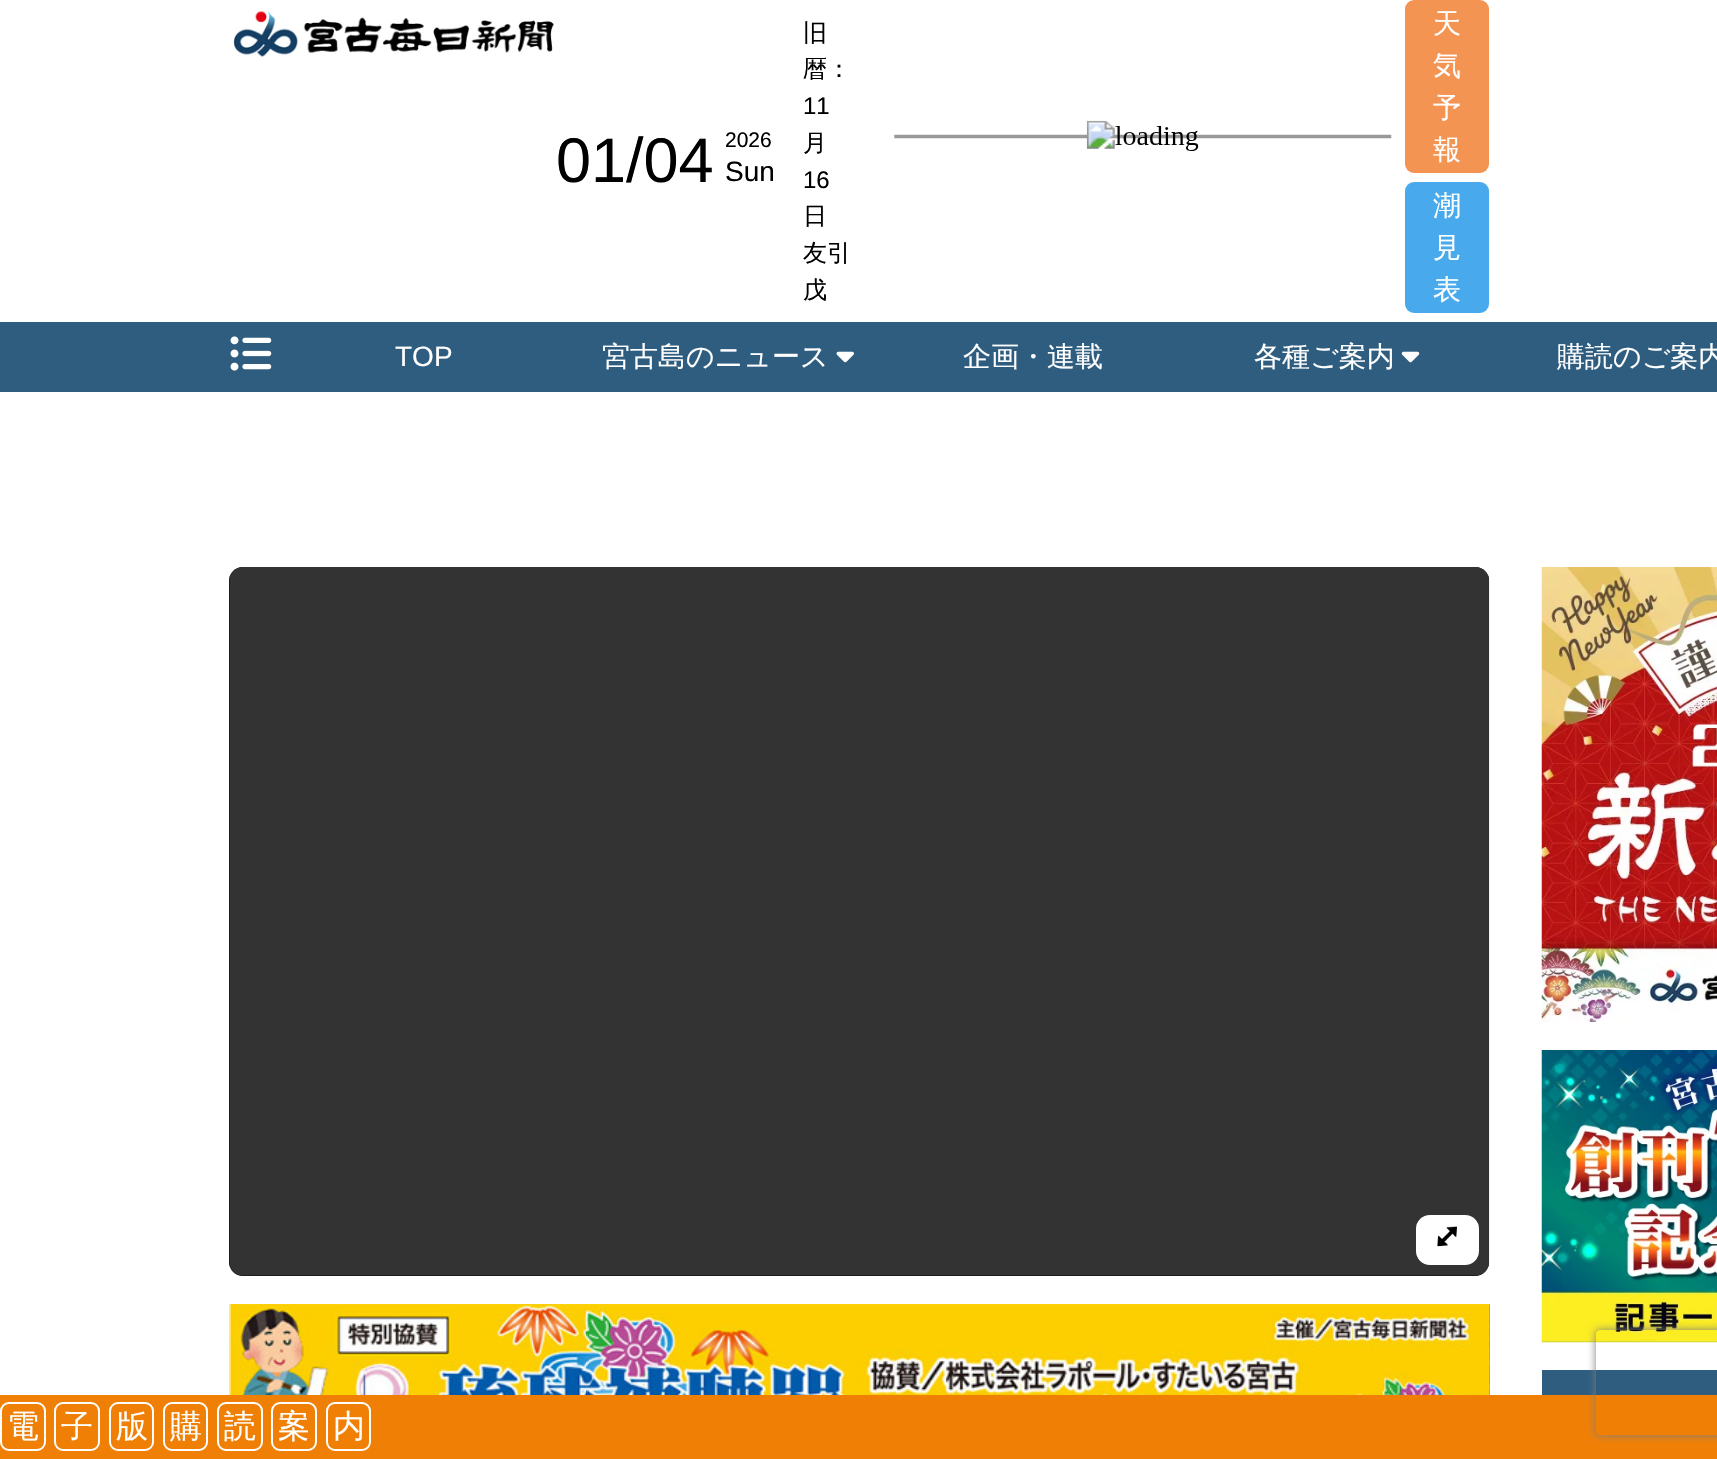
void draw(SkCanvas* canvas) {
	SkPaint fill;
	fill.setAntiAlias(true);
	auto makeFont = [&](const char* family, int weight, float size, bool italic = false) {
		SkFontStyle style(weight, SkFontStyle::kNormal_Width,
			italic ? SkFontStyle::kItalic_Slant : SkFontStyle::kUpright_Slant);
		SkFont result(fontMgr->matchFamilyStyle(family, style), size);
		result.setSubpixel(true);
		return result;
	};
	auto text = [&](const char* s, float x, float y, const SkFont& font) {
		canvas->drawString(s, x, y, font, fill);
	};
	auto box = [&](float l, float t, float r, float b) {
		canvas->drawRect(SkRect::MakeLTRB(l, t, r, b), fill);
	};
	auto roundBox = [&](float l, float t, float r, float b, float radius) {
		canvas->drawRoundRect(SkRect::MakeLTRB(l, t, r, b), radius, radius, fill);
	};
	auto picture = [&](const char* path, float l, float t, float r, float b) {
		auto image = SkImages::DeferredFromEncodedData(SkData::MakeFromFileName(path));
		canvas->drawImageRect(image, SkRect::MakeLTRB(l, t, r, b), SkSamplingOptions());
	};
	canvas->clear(0xFFFFFFFF);
	picture("image0.png", 233, 11, 554, 57);
	picture("image1.png", 894, 120, 1392, 151);
	fill.setColor(0xFFF49453);
	roundBox(1405, 0, 1489, 173, 9);
	fill.setColor(0xFF48AAEC);
	roundBox(1405, 182, 1489, 313, 9);
	fill.setColor(0xFF2E5D7F);
	box(0, 322, 1717, 392);
	picture("image2.png", 230, 336, 272, 371);
	picture("image3.png", 836, 351, 854, 363);
	picture("image4.png", 1401, 351, 1420, 363);
	fill.setColor(0xFF000000);
	roundBox(229, 567, 1489, 1276, 14);
	picture("image5.png", 229, 567, 1490, 1276);
	fill.setColor(0xFFFFFFFF);
	roundBox(1416, 1215, 1479, 1265, 14);
	picture("image6.png", 1437, 1226, 1457, 1247);
	picture("image7.png", 229, 1304, 1489, 1395);
	picture("image8.png", 1489, 1304, 1490, 1395);
	picture("image9.png", 1541, 567, 1717, 1022);
	picture("image10.png", 1541, 1050, 1717, 1343);
	fill.setColor(0xFF2E5D7F);
	box(1542, 1370, 1717, 1395);
	fill.setColor(0xFFF07F05);
	box(0, 1395, 1717, 1459);
	fill.setStyle(SkPaint::kStroke_Style);
	fill.setStrokeWidth(2);
	fill.setColor(0xFFFFFFFF);
	canvas->drawRoundRect(SkRect::MakeLTRB(1, 1403, 45, 1450), 8, 8, fill);
	canvas->drawRoundRect(SkRect::MakeLTRB(55, 1403, 99, 1450), 8, 8, fill);
	canvas->drawRoundRect(SkRect::MakeLTRB(110, 1403, 153, 1450), 8, 8, fill);
	canvas->drawRoundRect(SkRect::MakeLTRB(164, 1403, 207, 1450), 8, 8, fill);
	canvas->drawRoundRect(SkRect::MakeLTRB(218, 1403, 262, 1450), 8, 8, fill);
	canvas->drawRoundRect(SkRect::MakeLTRB(272, 1403, 316, 1450), 8, 8, fill);
	canvas->drawRoundRect(SkRect::MakeLTRB(327, 1403, 370, 1450), 8, 8, fill);
	canvas->save();
	canvas->clipPath(SkPathBuilder(SkPathFillType::kEvenOdd).moveTo(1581, 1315).lineTo(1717, 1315).lineTo(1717, 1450).lineTo(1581, 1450).close().moveTo(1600, 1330).lineTo(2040, 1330).cubicTo(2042, 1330, 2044, 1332, 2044, 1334).lineTo(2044, 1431).cubicTo(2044, 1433, 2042, 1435, 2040, 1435).lineTo(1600, 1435).cubicTo(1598, 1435, 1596, 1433, 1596, 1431).lineTo(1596, 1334).cubicTo(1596, 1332, 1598, 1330, 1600, 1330).close().detach(), true);
	fill.setStyle(SkPaint::kFill_Style);
	fill.setColor(0xFF808080);
	fill.setMaskFilter(SkMaskFilter::MakeBlur(kNormal_SkBlurStyle, 4.5f));
	canvas->drawRoundRect(SkRect::MakeLTRB(1596, 1330, 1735, 1435), 4, 4, fill);
	fill.setMaskFilter(nullptr);
	canvas->restore();
	auto font1 = makeFont("Liberation Sans", 400, 63);
	fill.setColor(0xFF000000);
	text("01/04", 556, 182, font1);
	auto font2 = makeFont("Liberation Sans", 400, 21);
	text("2026", 725, 147, font2);
	auto font3 = makeFont("Liberation Sans", 400, 28);
	text("Sun", 725, 181, font3);
	auto font4 = makeFont("WenQuanYi Zen Hei", 500, 24);
	text("旧", 803, 41, font4);
	text("暦：", 803, 77, font4);
	auto font5 = makeFont("Liberation Sans", 400, 24);
	text("11", 803, 114, font5);
	text("月", 803, 151, font4);
	text("16", 803, 188, font5);
	text("日", 803, 224, font4);
	text("友引", 803, 261, font4);
	text("戊", 803, 298, font4);
	auto font6 = makeFont("WenQuanYi Zen Hei", 500, 28);
	fill.setColor(0xFFFFFFFF);
	text("天", 1433, 33, font6);
	text("気", 1433, 75, font6);
	text("予", 1433, 117, font6);
	text("報", 1433, 159, font6);
	text("潮", 1433, 215, font6);
	text("見", 1433, 257, font6);
	text("表", 1433, 299, font6);
	text("TOP", 395, 366, font3);
	text("宮古島のニュース", 602, 366, font6);
	text("企画・連載", 963, 366, font6);
	text("各種ご案内", 1254, 366, font6);
	text("購読のご案内", 1557, 366, font6);
	auto font7 = makeFont("WenQuanYi Zen Hei", 500, 32);
	text("電", 7, 1437, font7);
	text("子", 61, 1437, font7);
	text("版", 116, 1437, font7);
	text("購", 170, 1437, font7);
	text("読", 224, 1437, font7);
	text("案", 278, 1437, font7);
	text("内", 333, 1437, font7);
}
